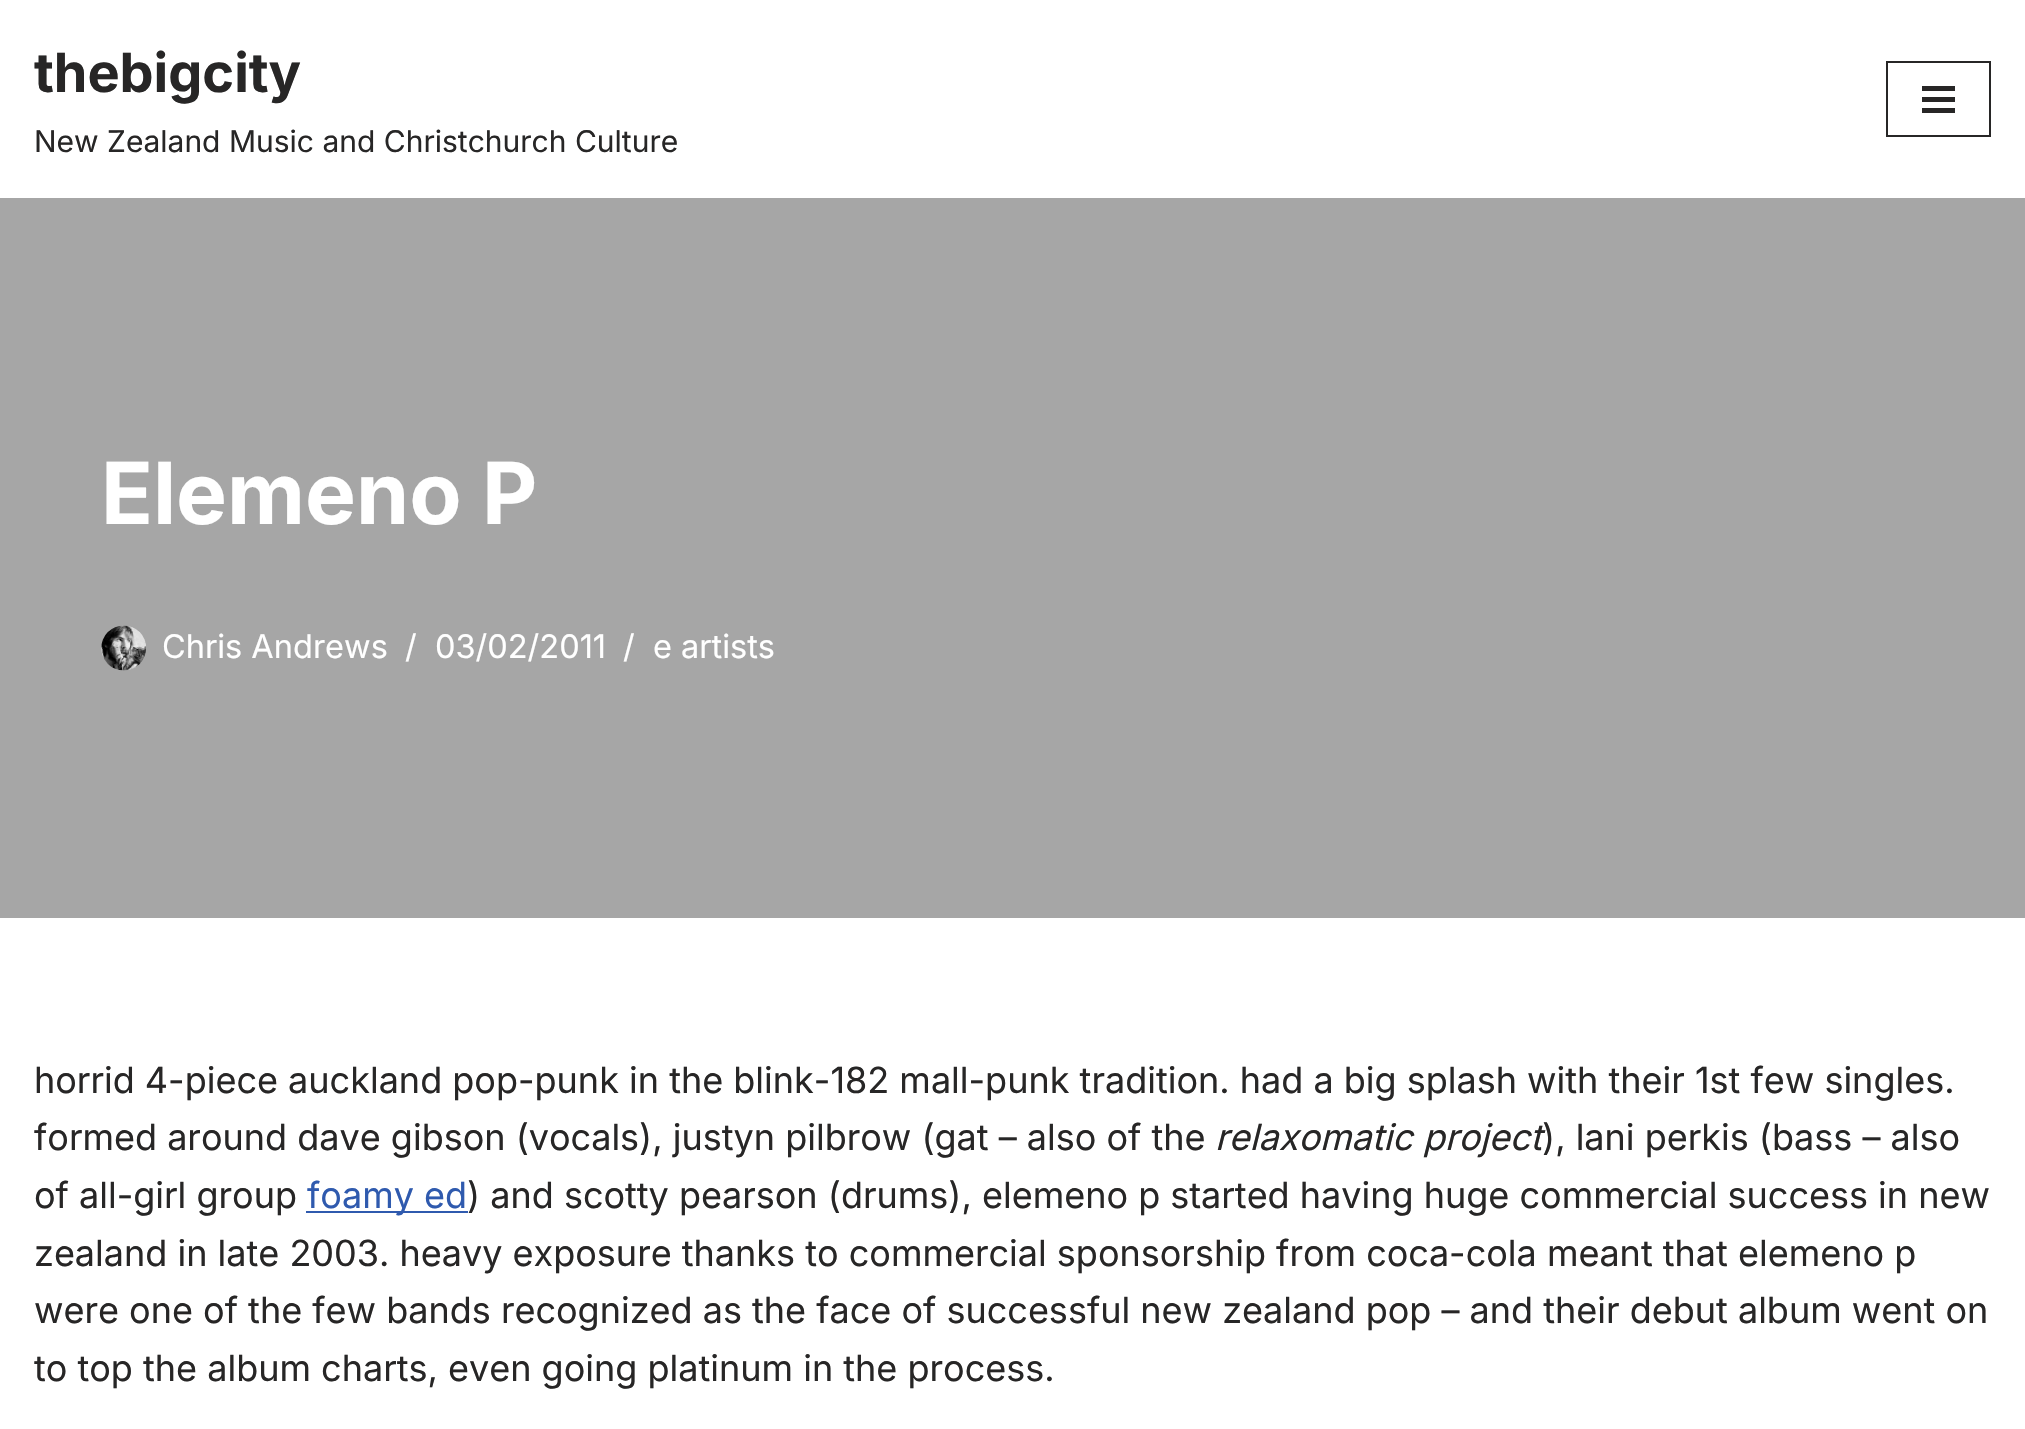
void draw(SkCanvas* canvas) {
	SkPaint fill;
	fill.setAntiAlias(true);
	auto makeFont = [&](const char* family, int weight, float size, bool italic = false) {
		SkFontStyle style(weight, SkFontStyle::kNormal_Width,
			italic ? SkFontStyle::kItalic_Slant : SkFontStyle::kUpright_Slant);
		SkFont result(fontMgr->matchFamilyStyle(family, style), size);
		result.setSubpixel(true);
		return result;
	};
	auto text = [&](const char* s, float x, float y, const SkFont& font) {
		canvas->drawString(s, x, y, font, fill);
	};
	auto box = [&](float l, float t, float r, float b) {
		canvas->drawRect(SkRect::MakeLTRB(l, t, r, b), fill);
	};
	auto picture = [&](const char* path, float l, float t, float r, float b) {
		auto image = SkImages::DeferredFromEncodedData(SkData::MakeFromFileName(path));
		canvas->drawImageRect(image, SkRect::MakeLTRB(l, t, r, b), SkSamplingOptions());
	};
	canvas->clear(0xFFFFFFFF);
	fill.setColor(0xFFA6A6A6);
	box(0, 198, 2025, 918);
	fill.setStyle(SkPaint::kStroke_Style);
	fill.setStrokeWidth(2);
	fill.setColor(0xFF272626);
	canvas->drawRect(SkRect::MakeLTRB(1887, 62, 1990, 136), fill);
	fill.setStyle(SkPaint::kFill_Style);
	box(1922, 86, 1955, 91);
	box(1922, 97, 1955, 102);
	box(1922, 108, 1955, 113);
	picture("image0.png", 101, 625, 146, 671);
	fill.setColor(0xFF2F5AAE);
	box(306, 1211, 468, 1213);
	auto font1 = makeFont("Inter", 700, 54);
	fill.setColor(0xFF272626);
	text("thebigcity", 34, 92, font1);
	auto font2 = makeFont("Inter", 400, 30);
	text("New Zealand Music and Christchurch Culture", 34, 152, font2);
	auto font3 = makeFont("Inter", 700, 85.5f);
	fill.setColor(0xFFFFFFFF);
	text("Elemeno P", 101, 524, font3);
	auto font4 = makeFont("Inter", 400, 32.5f);
	text("Chris Andrews", 162, 658, font4);
	text("/", 405, 658, font4);
	text("03/02/2011", 435, 658, font4);
	text("/", 623, 658, font4);
	text("e artists", 653, 658, font4);
	auto font5 = makeFont("Inter", 400, 36);
	fill.setColor(0xFF272626);
	text("horrid 4-piece auckland pop-punk in the blink-182 mall-punk tradition. had a big splash with their 1st few singles.", 34, 1093, font5);
	text("formed around dave gibson (vocals), justyn pilbrow (gat – also of the", 34, 1150, font5);
	auto font6 = makeFont("Inter", 400, 36, true);
	text("relaxomatic project", 1215, 1150, font6);
	text("), lani perkis (bass – also", 1542, 1150, font5);
	text("of all-girl group", 34, 1208, font5);
	fill.setColor(0xFF2F5AAE);
	text("foamy ed", 307, 1208, font5);
	fill.setColor(0xFF272626);
	text(") and scotty pearson (drums), elemeno p started having huge commercial success in new", 467, 1208, font5);
	text("zealand in late 2003. heavy exposure thanks to commercial sponsorship from coca-cola meant that elemeno p", 34, 1266, font5);
	text("were one of the few bands recognized as the face of successful new zealand pop – and their debut album went on", 34, 1323, font5);
	text("to top the album charts, even going platinum in the process.", 34, 1381, font5);
}
